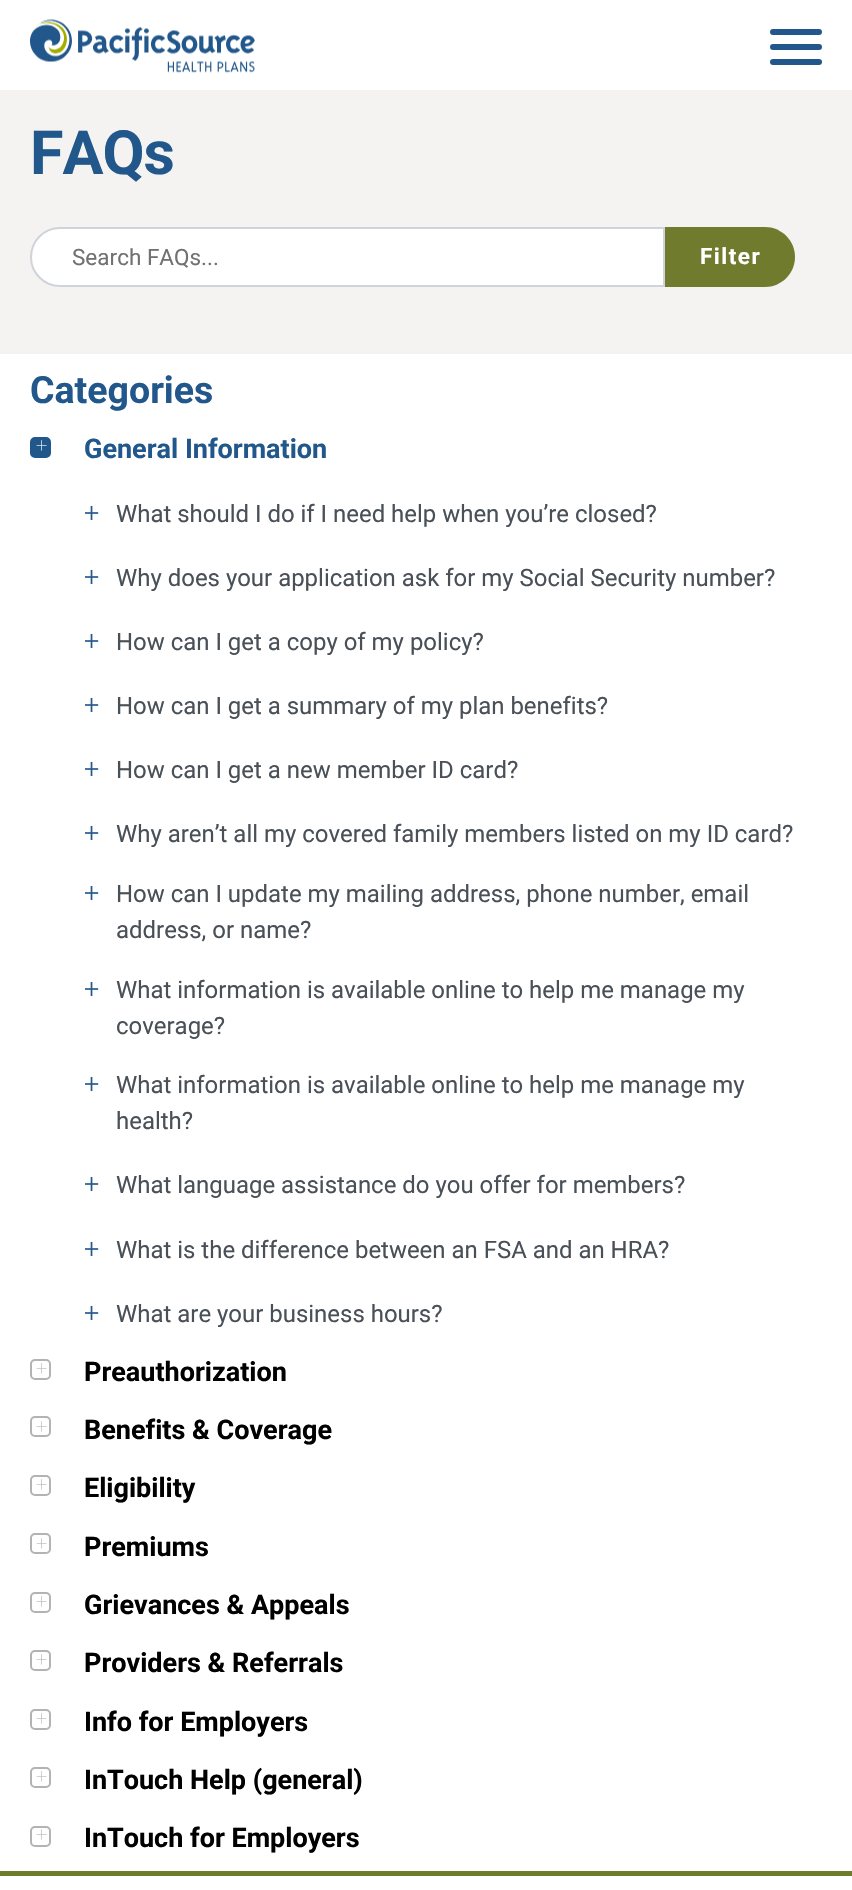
void draw(SkCanvas* canvas) {
	SkPaint fill;
	fill.setAntiAlias(true);
	auto makeFont = [&](const char* family, int weight, float size, bool italic = false) {
		SkFontStyle style(weight, SkFontStyle::kNormal_Width,
			italic ? SkFontStyle::kItalic_Slant : SkFontStyle::kUpright_Slant);
		SkFont result(fontMgr->matchFamilyStyle(family, style), size);
		result.setSubpixel(true);
		return result;
	};
	auto text = [&](const char* s, float x, float y, const SkFont& font) {
		canvas->drawString(s, x, y, font, fill);
	};
	auto spacedText = [&](const char* s, float x, float y, const SkFont& font, const SkPaint& ink, float letter, float word) {
		std::vector<SkGlyphID> glyphs(font.countText(s, strlen(s), SkTextEncoding::kUTF8));
		std::vector<float> xs(glyphs.size());
		font.textToGlyphs(s, strlen(s), SkTextEncoding::kUTF8, glyphs);
		font.getXPos(glyphs, xs, x);
		float extra = 0;
		for (size_t i = 0; i < glyphs.size(); i++) {
			xs[i] += extra;
			extra += letter + word * (glyphs[i] == font.unicharToGlyph(' '));
		}
		canvas->drawTextBlob(SkTextBlob::MakeFromPosHGlyphs(glyphs, xs, y, font), 0, 0, ink);
	};
	auto box = [&](float l, float t, float r, float b) {
		canvas->drawRect(SkRect::MakeLTRB(l, t, r, b), fill);
	};
	auto roundBox = [&](float l, float t, float r, float b, float radius) {
		canvas->drawRoundRect(SkRect::MakeLTRB(l, t, r, b), radius, radius, fill);
	};
	auto picture = [&](const char* path, float l, float t, float r, float b) {
		auto image = SkImages::DeferredFromEncodedData(SkData::MakeFromFileName(path));
		canvas->drawImageRect(image, SkRect::MakeLTRB(l, t, r, b), SkSamplingOptions());
	};
	canvas->clear(0xFFFFFFFF);
	picture("image0.png", 30, 19, 255, 73);
	fill.setColor(0xFF21578A);
	roundBox(770, 44, 822, 50, 3);
	roundBox(770, 29, 822, 35, 3);
	roundBox(770, 59, 822, 65, 3);
	fill.setColor(0xFFF4F3F1);
	box(0, 90, 852, 354);
	fill.setColor(0xFFFFFFFF);
	canvas->drawPath(SkPathBuilder().moveTo(60, 228).lineTo(664, 228).lineTo(664, 286).lineTo(60, 286).cubicTo(44, 286, 31, 273, 31, 257).cubicTo(31, 241, 44, 228, 60, 228).close().detach(), fill);
	fill.setStyle(SkPaint::kStroke_Style);
	fill.setStrokeWidth(2);
	fill.setColor(0xFFCED4DA);
	canvas->drawPath(SkPathBuilder().moveTo(60, 228).lineTo(664, 228).lineTo(664, 286).lineTo(60, 286).cubicTo(44, 286, 31, 273, 31, 257).cubicTo(31, 241, 44, 228, 60, 228).close().detach(), fill);
	fill.setStyle(SkPaint::kFill_Style);
	fill.setColor(0xFF717B2D);
	canvas->drawPath(SkPathBuilder().moveTo(665, 227).lineTo(765, 227).cubicTo(781.5f, 227, 795, 240.5f, 795, 257).cubicTo(795, 273.5f, 781.5f, 287, 765, 287).lineTo(665, 287).close().detach(), fill);
	fill.setColor(0xFF21578A);
	canvas->drawRoundRect(SkRect::MakeLTRB(31, 438, 50, 457), 4, 4, fill);
	fill.setStyle(SkPaint::kStroke_Style);
	canvas->drawRoundRect(SkRect::MakeLTRB(31, 438, 50, 457), 4, 4, fill);
	fill.setColor(0xFFB3B3B3);
	canvas->drawRoundRect(SkRect::MakeLTRB(31, 1360, 50, 1379), 4, 4, fill);
	canvas->drawRoundRect(SkRect::MakeLTRB(31, 1417, 50, 1436), 4, 4, fill);
	canvas->drawRoundRect(SkRect::MakeLTRB(31, 1476, 50, 1495), 4, 4, fill);
	canvas->drawRoundRect(SkRect::MakeLTRB(31, 1534, 50, 1553), 4, 4, fill);
	canvas->drawRoundRect(SkRect::MakeLTRB(31, 1593, 50, 1612), 4, 4, fill);
	canvas->drawRoundRect(SkRect::MakeLTRB(31, 1651, 50, 1670), 4, 4, fill);
	canvas->drawRoundRect(SkRect::MakeLTRB(31, 1710, 50, 1729), 4, 4, fill);
	canvas->drawRoundRect(SkRect::MakeLTRB(31, 1768, 50, 1787), 4, 4, fill);
	canvas->drawRoundRect(SkRect::MakeLTRB(31, 1827, 50, 1846), 4, 4, fill);
	fill.setStyle(SkPaint::kFill_Style);
	fill.setColor(0xFF717B2D);
	box(0, 1871, 852, 1876);
	auto font1 = makeFont("Roboto", 700, 61);
	fill.setColor(0xFF21578A);
	spacedText("FAQs", 30, 174, font1, fill, -1, 0);
	auto font2 = makeFont("Roboto", 400, 22.5f);
	fill.setColor(0xFF717171);
	text("Search FAQs...", 72, 265, font2);
	auto font3 = makeFont("Roboto", 700, 22.5f);
	fill.setColor(0xFFFFFFFF);
	spacedText("Filter", 700, 264, font3, fill, 1.5f, 0);
	auto font4 = makeFont("Roboto", 700, 37.5f);
	fill.setColor(0xFF21578A);
	text("Categories", 30, 403, font4);
	auto font5 = makeFont("Roboto", 100, 20);
	fill.setColor(0xFFFFFFFF);
	text("+", 36, 452, font5);
	auto font6 = makeFont("Roboto", 700, 27);
	fill.setColor(0xFF21578A);
	text("General Information", 84, 458, font6);
	auto font7 = makeFont("Roboto", 300, 27);
	text("+", 84, 522, font7);
	auto font8 = makeFont("Roboto", 400, 23.95f);
	fill.setColor(0xFF495057);
	text("What should I do if I need help when you’re closed?", 116, 522, font8);
	fill.setColor(0xFF21578A);
	text("+", 84, 586, font7);
	fill.setColor(0xFF495057);
	text("Why does your application ask for my Social Security number?", 116, 586, font8);
	fill.setColor(0xFF21578A);
	text("+", 84, 650, font7);
	fill.setColor(0xFF495057);
	text("How can I get a copy of my policy?", 116, 650, font8);
	fill.setColor(0xFF21578A);
	text("+", 84, 714, font7);
	fill.setColor(0xFF495057);
	text("How can I get a summary of my plan benefits?", 116, 714, font8);
	fill.setColor(0xFF21578A);
	text("+", 84, 778, font7);
	fill.setColor(0xFF495057);
	text("How can I get a new member ID card?", 116, 778, font8);
	fill.setColor(0xFF21578A);
	text("+", 84, 842, font7);
	fill.setColor(0xFF495057);
	text("Why aren’t all my covered family members listed on my ID card?", 116, 842, font8);
	fill.setColor(0xFF21578A);
	text("+", 84, 902, font7);
	fill.setColor(0xFF495057);
	text("How can I update my mailing address, phone number, email", 116, 902, font8);
	text("address, or name?", 116, 938, font8);
	fill.setColor(0xFF21578A);
	text("+", 84, 998, font7);
	fill.setColor(0xFF495057);
	text("What information is available online to help me manage my", 116, 998, font8);
	text("coverage?", 116, 1034, font8);
	fill.setColor(0xFF21578A);
	text("+", 84, 1093, font7);
	fill.setColor(0xFF495057);
	text("What information is available online to help me manage my", 116, 1093, font8);
	text("health?", 116, 1129, font8);
	fill.setColor(0xFF21578A);
	text("+", 84, 1193, font7);
	fill.setColor(0xFF495057);
	text("What language assistance do you offer for members?", 116, 1193, font8);
	fill.setColor(0xFF21578A);
	text("+", 84, 1258, font7);
	fill.setColor(0xFF495057);
	text("What is the difference between an FSA and an HRA?", 116, 1258, font8);
	fill.setColor(0xFF21578A);
	text("+", 84, 1322, font7);
	fill.setColor(0xFF495057);
	text("What are your business hours?", 116, 1322, font8);
	fill.setColor(0xFFB3B3B3);
	text("+", 36, 1375, font5);
	fill.setColor(0xFF000000);
	text("Preauthorization", 84, 1381, font6);
	fill.setColor(0xFFB3B3B3);
	text("+", 36, 1433, font5);
	fill.setColor(0xFF000000);
	text("Benefits & Coverage", 84, 1439, font6);
	fill.setColor(0xFFB3B3B3);
	text("+", 36, 1491, font5);
	fill.setColor(0xFF000000);
	text("Eligibility", 84, 1497, font6);
	fill.setColor(0xFFB3B3B3);
	text("+", 36, 1550, font5);
	fill.setColor(0xFF000000);
	text("Premiums", 84, 1556, font6);
	fill.setColor(0xFFB3B3B3);
	text("+", 36, 1608, font5);
	fill.setColor(0xFF000000);
	text("Grievances & Appeals", 84, 1614, font6);
	fill.setColor(0xFFB3B3B3);
	text("+", 36, 1666, font5);
	fill.setColor(0xFF000000);
	text("Providers & Referrals", 84, 1672, font6);
	fill.setColor(0xFFB3B3B3);
	text("+", 36, 1725, font5);
	fill.setColor(0xFF000000);
	text("Info for Employers", 84, 1731, font6);
	fill.setColor(0xFFB3B3B3);
	text("+", 36, 1783, font5);
	fill.setColor(0xFF000000);
	text("InTouch Help (general)", 84, 1789, font6);
	fill.setColor(0xFFB3B3B3);
	text("+", 36, 1841, font5);
	fill.setColor(0xFF000000);
	text("InTouch for Employers", 84, 1847, font6);
}
